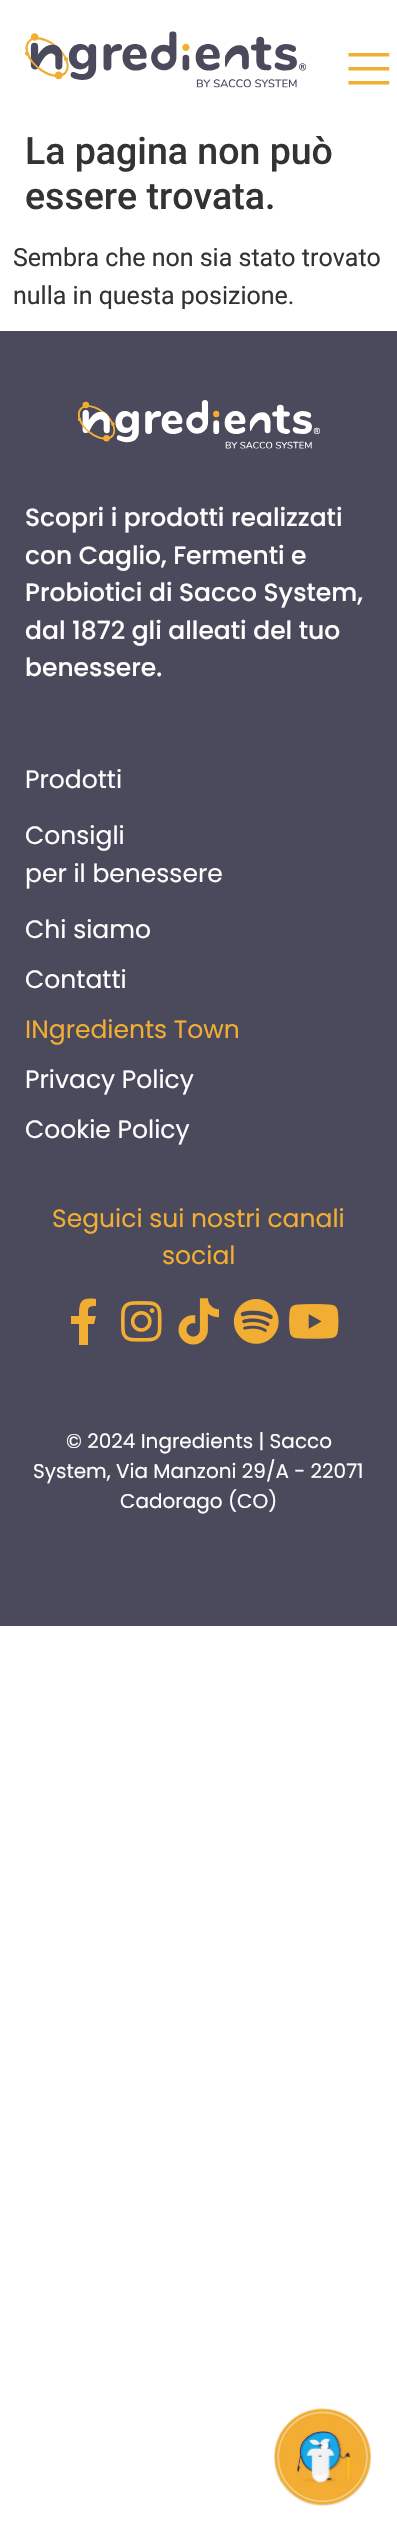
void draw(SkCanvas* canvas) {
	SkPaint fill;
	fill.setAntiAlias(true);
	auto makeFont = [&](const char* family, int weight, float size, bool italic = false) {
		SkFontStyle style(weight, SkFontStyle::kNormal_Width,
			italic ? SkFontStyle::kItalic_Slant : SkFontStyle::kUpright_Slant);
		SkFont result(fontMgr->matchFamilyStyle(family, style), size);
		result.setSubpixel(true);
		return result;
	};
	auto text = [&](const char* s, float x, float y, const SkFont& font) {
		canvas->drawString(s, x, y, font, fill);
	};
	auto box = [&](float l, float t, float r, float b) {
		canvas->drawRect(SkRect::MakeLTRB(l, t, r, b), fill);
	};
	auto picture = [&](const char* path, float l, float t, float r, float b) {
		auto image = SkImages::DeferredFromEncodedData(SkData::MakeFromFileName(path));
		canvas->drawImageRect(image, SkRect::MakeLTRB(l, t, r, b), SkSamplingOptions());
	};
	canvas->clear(0xFFFFFFFF);
	picture("image0.png", 25, 31, 306, 88);
	picture("image1.png", 348, 53, 390, 85);
	fill.setColor(0xFF4A4A5C);
	box(0, 331, 397, 1626);
	picture("image2.png", 78, 400, 320, 449);
	fill.setColor(0xFFF2AD33);
	canvas->drawPath(SkPathBuilder().moveTo(94, 1324).lineTo(88, 1324).lineTo(88, 1345).lineTo(79, 1345).lineTo(79, 1324).lineTo(71, 1324).lineTo(71, 1316).lineTo(79, 1316).cubicTo(79, 1301, 81, 1297, 96, 1299).lineTo(96, 1306).cubicTo(87, 1306, 88, 1308, 88, 1316).lineTo(96, 1316).close().detach(), fill);
	picture("image3.png", 121, 1301, 162, 1342);
	picture("image4.png", 178, 1298, 219, 1345);
	picture("image5.png", 233, 1299, 279, 1344);
	picture("image6.png", 289, 1304, 339, 1339);
	picture("image7.png", 274, 2408, 371, 2506);
	auto font1 = makeFont("Roboto", 500, 37.5f);
	fill.setColor(0xFF333333);
	text("La pagina non può", 25, 164, font1);
	text("essere trovata.", 25, 209, font1);
	auto font2 = makeFont("Roboto", 400, 25);
	text("Sembra che non sia stato trovato", 13, 266, font2);
	text("nulla in questa posizione.", 13, 304, font2);
	auto font3 = makeFont("Poppins", 500, 25);
	fill.setColor(0xFFFFFFFF);
	text("Scopri i prodotti realizzati", 25, 526, font3);
	text("con Caglio, Fermenti e", 25, 564, font3);
	text("Probiotici di Sacco System,", 25, 601, font3);
	text("dal 1872 gli alleati del tuo", 25, 639, font3);
	text("benessere.", 25, 676, font3);
	auto font4 = makeFont("Poppins", 400, 25);
	text("Prodotti", 25, 788, font4);
	text("Consigli", 25, 844, font4);
	text("per il benessere", 25, 882, font4);
	text("Chi siamo", 25, 938, font4);
	text("Contatti", 25, 988, font4);
	fill.setColor(0xFFF2AD33);
	text("INgredients Town", 25, 1038, font4);
	fill.setColor(0xFFFFFFFF);
	text("Privacy Policy", 25, 1088, font4);
	text("Cookie Policy", 25, 1138, font4);
	fill.setColor(0xFFF2AD33);
	text("Seguici sui nostri canali", 52, 1227, font4);
	text("social", 162, 1264, font4);
	auto font5 = makeFont("Poppins", 400, 20);
	fill.setColor(0xFFFFFFFF);
	text("© 2024 Ingredients | Sacco", 66, 1448, font5);
	text("System, Via Manzoni 29/A - 22071", 33, 1478, font5);
	text("Cadorago (CO)", 120, 1508, font5);
}
